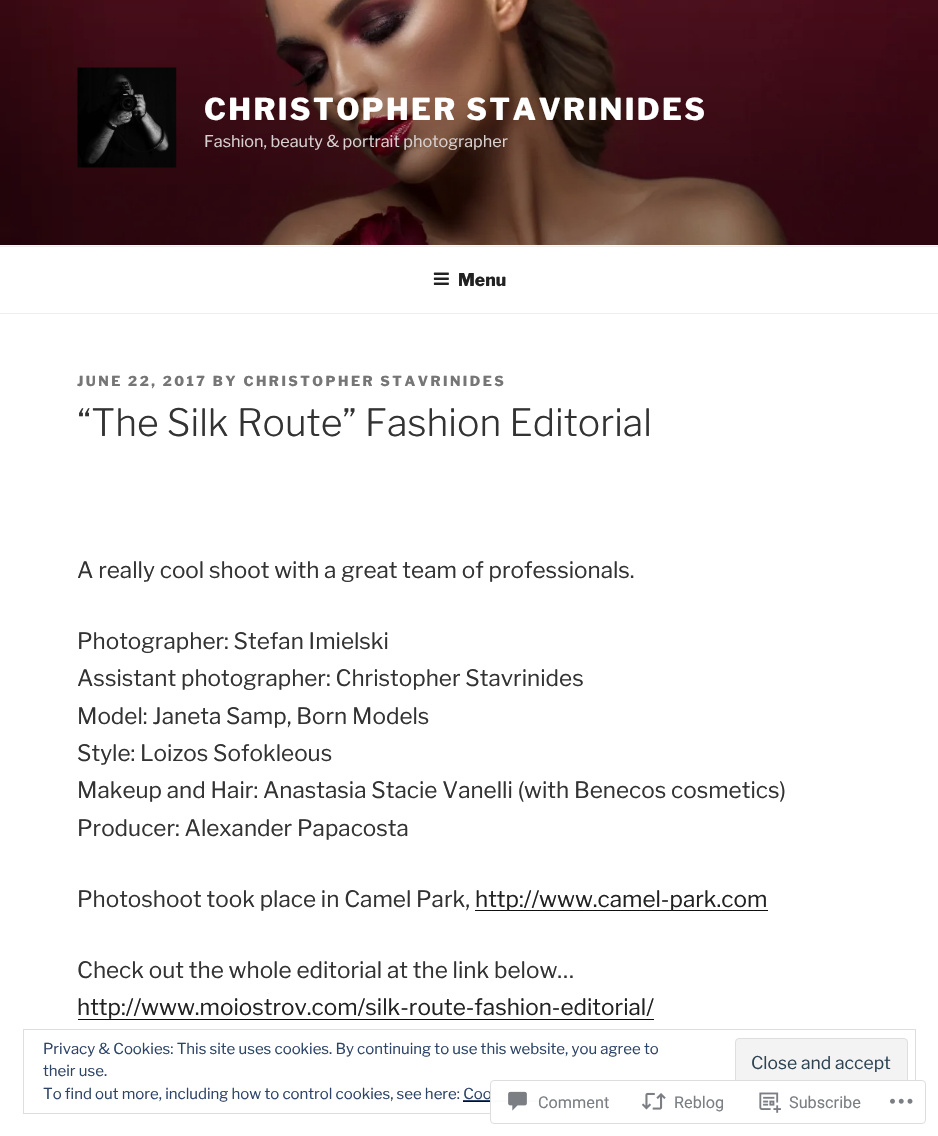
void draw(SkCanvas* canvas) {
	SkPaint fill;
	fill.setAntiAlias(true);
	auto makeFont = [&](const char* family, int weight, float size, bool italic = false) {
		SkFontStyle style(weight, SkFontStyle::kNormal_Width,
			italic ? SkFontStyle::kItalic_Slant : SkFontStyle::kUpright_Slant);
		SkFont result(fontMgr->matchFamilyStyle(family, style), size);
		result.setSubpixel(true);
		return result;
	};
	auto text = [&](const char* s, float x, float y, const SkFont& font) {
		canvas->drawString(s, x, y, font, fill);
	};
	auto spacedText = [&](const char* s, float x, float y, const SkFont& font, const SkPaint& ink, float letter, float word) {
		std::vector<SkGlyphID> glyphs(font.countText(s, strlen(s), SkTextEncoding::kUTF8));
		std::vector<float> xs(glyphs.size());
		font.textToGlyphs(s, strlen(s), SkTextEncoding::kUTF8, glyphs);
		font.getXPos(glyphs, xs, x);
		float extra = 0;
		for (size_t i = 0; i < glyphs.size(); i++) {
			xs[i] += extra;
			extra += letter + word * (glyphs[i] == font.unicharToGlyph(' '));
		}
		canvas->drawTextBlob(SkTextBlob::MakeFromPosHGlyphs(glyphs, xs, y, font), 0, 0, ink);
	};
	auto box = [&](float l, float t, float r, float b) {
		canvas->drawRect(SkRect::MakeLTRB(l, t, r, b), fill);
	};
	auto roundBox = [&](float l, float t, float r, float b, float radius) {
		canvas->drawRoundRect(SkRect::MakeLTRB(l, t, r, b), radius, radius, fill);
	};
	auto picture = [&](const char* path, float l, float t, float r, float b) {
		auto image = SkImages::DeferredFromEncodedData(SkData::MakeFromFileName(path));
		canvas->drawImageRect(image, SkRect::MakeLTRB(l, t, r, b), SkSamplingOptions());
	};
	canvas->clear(0xFFFFFFFF);
	fill.setColor(0xFFFAFAFA);
	box(0, 245, 938, 246);
	picture("image0.png", 0, 0, 938, 245);
	picture("image1.png", 77, 67, 177, 168);
	fill.setColor(0xFFEEEEEE);
	box(0, 246, 938, 247);
	box(0, 313, 938, 314);
	picture("image2.png", 433, 272, 449, 285);
	fill.setColor(0xFF0F0F0F);
	box(475, 910, 768, 911);
	box(78, 1019, 654, 1020);
	fill.setStyle(SkPaint::kStroke_Style);
	fill.setStrokeWidth(1);
	fill.setColor(0xFFDEDEDE);
	canvas->drawRect(SkRect::MakeLTRB(23.5f, 1029.5f, 915.5f, 1113.5f), fill);
	fill.setStyle(SkPaint::kFill_Style);
	fill.setColor(0xFFF3F3F3);
	canvas->drawRoundRect(SkRect::MakeLTRB(735.5f, 1038.5f, 907.5f, 1085.5f), 3.5f, 3.5f, fill);
	fill.setStyle(SkPaint::kStroke_Style);
	fill.setColor(0xFFDEDEDE);
	canvas->drawRoundRect(SkRect::MakeLTRB(735.5f, 1038.5f, 907.5f, 1085.5f), 3.5f, 3.5f, fill);
	fill.setStyle(SkPaint::kFill_Style);
	fill.setColor(0xFF2E4467);
	box(463, 1100, 558, 1101);
	auto font1 = makeFont("Libre Franklin", 100, 30);
	fill.setColor(0xFFFFFFFF);
	spacedText("CHRISTOPHER STAVRINIDES", 204, 120, font1, fill, 2.4f, 0);
	auto font2 = makeFont("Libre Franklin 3", 100, 16.25f);
	fill.setColor(0xFFD9D1D1);
	text("Fashion, beauty & portrait photographer", 204, 147, font2);
	auto font3 = makeFont("Libre Franklin", 100, 17.5f);
	fill.setColor(0xFF222222);
	text("Menu", 458, 286, font3);
	auto font4 = makeFont("Libre Franklin", 100, 13.75f);
	fill.setColor(0xFF767676);
	spacedText("JUNE 22, 2017 BY CHRISTOPHER STAVRINIDES", 77, 386, font4, fill, 2.5f, 0);
	auto font5 = makeFont("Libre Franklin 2", 100, 37.5f);
	fill.setColor(0xFF333333);
	text("“The Silk Route” Fashion Editorial", 77, 436, font5);
	auto font6 = makeFont("Libre Franklin 3", 100, 22.5f);
	text("A really cool shoot with a great team of professionals.", 77, 578, font6);
	text("Photographer: Stefan Imielski", 77, 649, font6);
	text("Assistant photographer: Christopher Stavrinides", 77, 686, font6);
	text("Model: Janeta Samp, Born Models", 77, 724, font6);
	text("Style: Loizos Sofokleous", 77, 761, font6);
	text("Makeup and Hair: Anastasia Stacie Vanelli (with Benecos cosmetics)", 77, 798, font6);
	text("Producer: Alexander Papacosta", 77, 836, font6);
	text("Photoshoot took place in Camel Park,", 77, 907, font6);
	fill.setColor(0xFF222222);
	text("http://www.camel-park.com", 475, 907, font6);
	fill.setColor(0xFF333333);
	text("Check out the whole editorial at the link below…", 77, 978, font6);
	fill.setColor(0xFF222222);
	text("http://www.moiostrov.com/silk-route-fashion-editorial/", 77, 1015, font6);
	auto font7 = makeFont("Libre Franklin 3", 100, 15);
	fill.setColor(0xFF2E4467);
	text("Privacy & Cookies: This site uses cookies. By continuing to use this website, you agree to", 43, 1054, font7);
	text("their use.", 43, 1076, font7);
	auto font8 = makeFont("Libre Franklin 3", 100, 17.5f);
	fill.setColor(0xFF2E4453);
	text("Close and accept", 751, 1069, font8);
	fill.setColor(0xFF2E4467);
	text("To find out more, including how to control cookies, see here: Coo", 43, 1099, font7);
	fill.setColor(0xFF0F0F0F);
	box(463, 1101, 558, 1102);
	fill.setColor(0xFAFFFFFF);
	roundBox(490, 1080, 926, 1124, 4);
	fill.setStyle(SkPaint::kStroke_Style);
	fill.setColor(0xFADCDCDE);
	canvas->drawRoundRect(SkRect::MakeLTRB(490.5f, 1080.5f, 925.5f, 1123.5f), 3.5f, 3.5f, fill);
	picture("image3.png", 508, 1091, 527, 1111);
	auto font9 = makeFont("Roboto", 400, 16.25f);
	fill.setStyle(SkPaint::kFill_Style);
	fill.setColor(0xFF7B7F84);
	text("Comment", 538, 1108, font9);
	picture("image4.png", 641, 1092, 666, 1110);
	text("Reblog", 674, 1108, font9);
	picture("image5.png", 759, 1092, 781, 1113);
	text("Subscribe", 789, 1108, font9);
	picture("image6.png", 890, 1098, 913, 1104);
}
